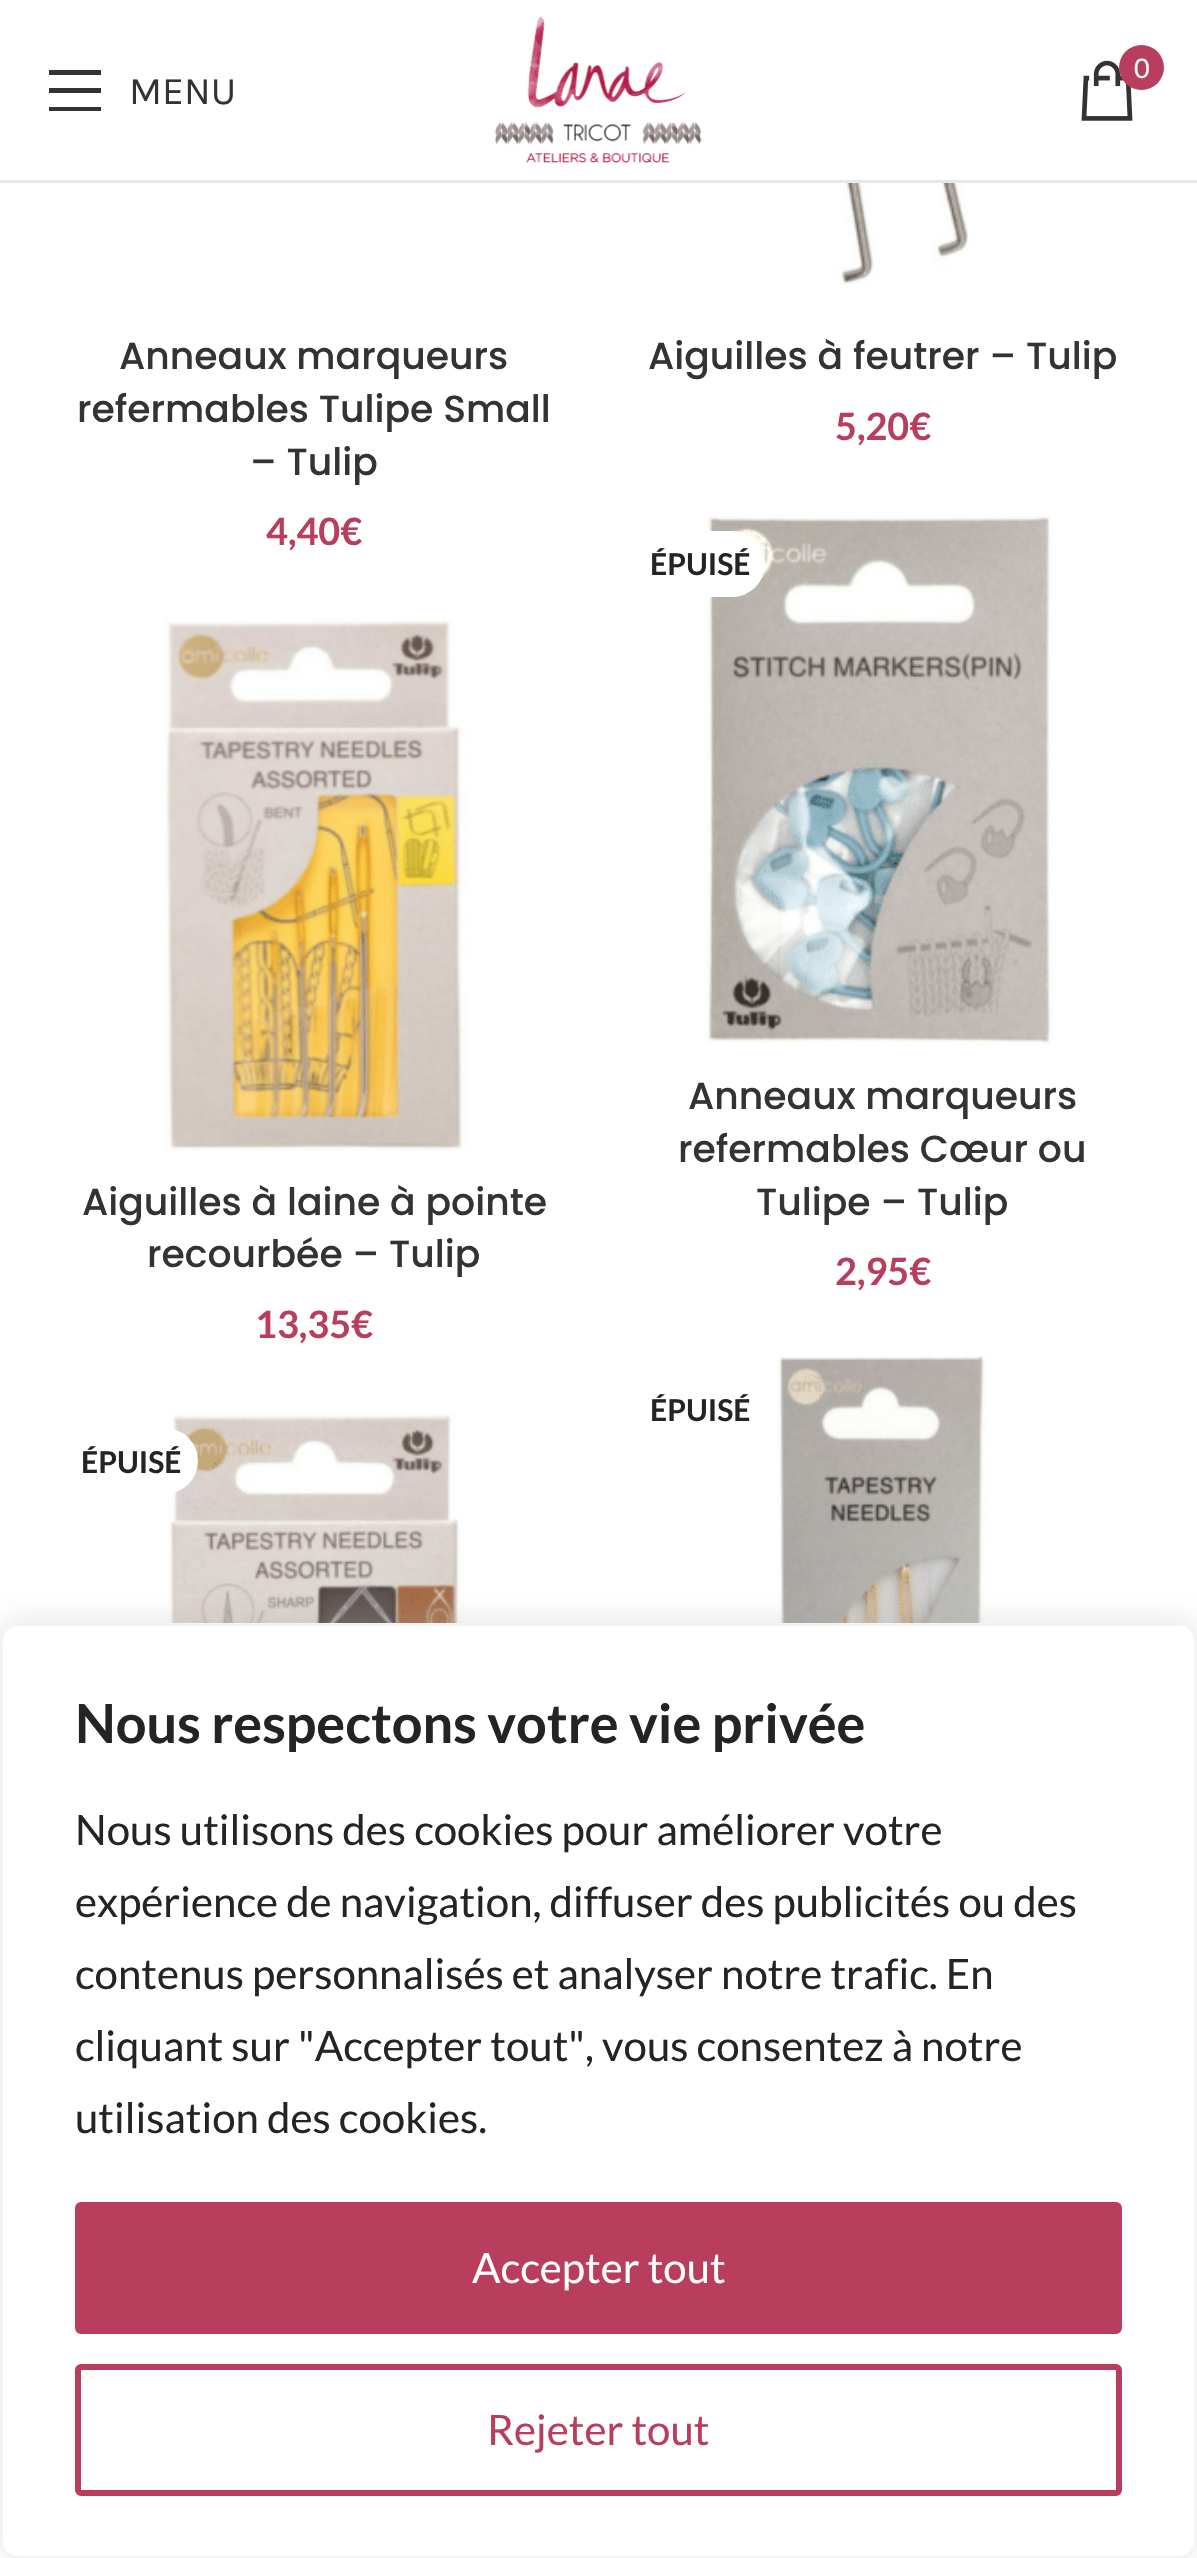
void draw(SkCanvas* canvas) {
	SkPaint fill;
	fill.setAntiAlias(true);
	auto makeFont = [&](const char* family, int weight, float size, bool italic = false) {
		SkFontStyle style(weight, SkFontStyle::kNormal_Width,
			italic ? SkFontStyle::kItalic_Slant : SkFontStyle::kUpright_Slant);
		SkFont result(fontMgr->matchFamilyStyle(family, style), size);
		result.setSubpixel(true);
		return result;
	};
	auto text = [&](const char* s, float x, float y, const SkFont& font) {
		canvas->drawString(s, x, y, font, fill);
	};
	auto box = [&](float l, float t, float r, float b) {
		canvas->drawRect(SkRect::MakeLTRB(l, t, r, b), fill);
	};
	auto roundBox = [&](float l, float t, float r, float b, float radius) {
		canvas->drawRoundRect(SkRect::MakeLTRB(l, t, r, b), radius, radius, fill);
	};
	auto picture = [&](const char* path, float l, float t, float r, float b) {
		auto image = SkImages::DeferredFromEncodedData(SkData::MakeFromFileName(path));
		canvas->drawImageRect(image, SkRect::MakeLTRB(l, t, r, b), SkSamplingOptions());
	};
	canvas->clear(0xFFFFFFFF);
	fill.setColor(0xFFE8E8E8);
	box(0, 180, 1197, 183);
	picture("image0.png", 494, 16, 702, 164);
	picture("image1.png", 1081, 60, 1133, 121);
	fill.setColor(0xFFB93D5D);
	canvas->drawCircle(1141.5f, 67.5f, 22.5f, fill);
	fill.setColor(0xFF333333);
	canvas->drawPath(SkPathBuilder().moveTo(49, 75).lineTo(101, 75).lineTo(101, 70).lineTo(49, 70).close().moveTo(49, 93).lineTo(101, 93).lineTo(101, 88).lineTo(49, 88).close().moveTo(49, 111).lineTo(101, 111).lineTo(101, 107).lineTo(49, 107).close().detach(), fill);
	picture("image2.png", 815, 183, 969, 285);
	picture("image3.png", 163, 618, 467, 1151);
	picture("image4.png", 706, 515, 1054, 1047);
	fill.setColor(0xFFFFFFFF);
	roundBox(636, 531, 765, 597, 33);
	picture("image5.png", 777, 1356, 986, 1623);
	picture("image6.png", 168, 1413, 464, 1623);
	roundBox(66, 1428, 198, 1494, 33);
	fill.setColor(0x4DACABAB);
	fill.setMaskFilter(SkMaskFilter::MakeBlur(kNormal_SkBlurStyle, 15));
	canvas->drawRoundRect(SkRect::MakeLTRB(0, 1620, 1197, 2556), 18, 18, fill);
	fill.setMaskFilter(nullptr);
	fill.setColor(0xFFFFFFFF);
	canvas->drawRoundRect(SkRect::MakeLTRB(1.5f, 1624.5f, 1195.5f, 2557.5f), 16.5f, 16.5f, fill);
	fill.setStyle(SkPaint::kStroke_Style);
	fill.setStrokeWidth(3);
	fill.setColor(0xFFF4F4F4);
	canvas->drawRoundRect(SkRect::MakeLTRB(1.5f, 1624.5f, 1195.5f, 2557.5f), 16.5f, 16.5f, fill);
	fill.setStyle(SkPaint::kFill_Style);
	fill.setColor(0xFFB93D5D);
	canvas->drawRoundRect(SkRect::MakeLTRB(78, 2205, 1119, 2331), 3, 3, fill);
	fill.setStyle(SkPaint::kStroke_Style);
	fill.setStrokeWidth(6);
	canvas->drawRoundRect(SkRect::MakeLTRB(78, 2205, 1119, 2331), 3, 3, fill);
	canvas->drawRoundRect(SkRect::MakeLTRB(78, 2367, 1119, 2493), 3, 3, fill);
	auto font1 = makeFont("Lato", 400, 27);
	fill.setStyle(SkPaint::kFill_Style);
	fill.setColor(0xFFFFFFFF);
	text("0", 1134, 78, font1);
	auto font2 = makeFont("Karla", 400, 39);
	fill.setColor(0xFF333333);
	text("MENU", 129, 104, font2);
	auto font3 = makeFont("Poppins", 500, 37.75f);
	text("Anneaux marqueurs", 119, 369, font3);
	text("refermables Tulipe Small", 77, 422, font3);
	text("– Tulip", 250, 475, font3);
	auto font4 = makeFont("Lato", 700, 37.75f);
	fill.setColor(0xFFB93D5D);
	text("4,40€", 266, 545, font4);
	fill.setColor(0xFF333333);
	text("Aiguilles à feutrer – Tulip", 648, 369, font3);
	fill.setColor(0xFFB93D5D);
	text("5,20€", 835, 440, font4);
	fill.setColor(0xFF333333);
	text("Aiguilles à laine à pointe", 82, 1215, font3);
	text("recourbée – Tulip", 147, 1267, font3);
	fill.setColor(0xFFB93D5D);
	text("13,35€", 255, 1338, font4);
	auto font5 = makeFont("Lato", 700, 30);
	fill.setColor(0xFF242424);
	text("ÉPUISÉ", 650, 575, font5);
	fill.setColor(0xFF333333);
	text("Anneaux marqueurs", 688, 1109, font3);
	text("refermables Cœur ou", 678, 1162, font3);
	text("Tulipe – Tulip", 756, 1215, font3);
	fill.setColor(0xFFB93D5D);
	text("2,95€", 835, 1285, font4);
	fill.setColor(0xFF242424);
	text("ÉPUISÉ", 650, 1421, font5);
	text("ÉPUISÉ", 81, 1473, font5);
	auto font6 = makeFont("Lato", 700, 54);
	text("Nous respectons votre vie privée", 75, 1743, font6);
	auto font7 = makeFont("Lato", 400, 42);
	text("Nous utilisons des cookies pour améliorer votre", 75, 1845, font7);
	text("expérience de navigation, diffuser des publicités ou des", 75, 1917, font7);
	text("contenus personnalisés et analyser notre trafic. En", 75, 1989, font7);
	text("cliquant sur \"Accepter tout\", vous consentez à notre", 75, 2061, font7);
	text("utilisation des cookies.", 75, 2133, font7);
	fill.setColor(0xFFFFFFFF);
	text("Accepter tout", 472, 2283, font7);
	fill.setColor(0xFFB93D5D);
	text("Rejeter tout", 487, 2445, font7);
}
